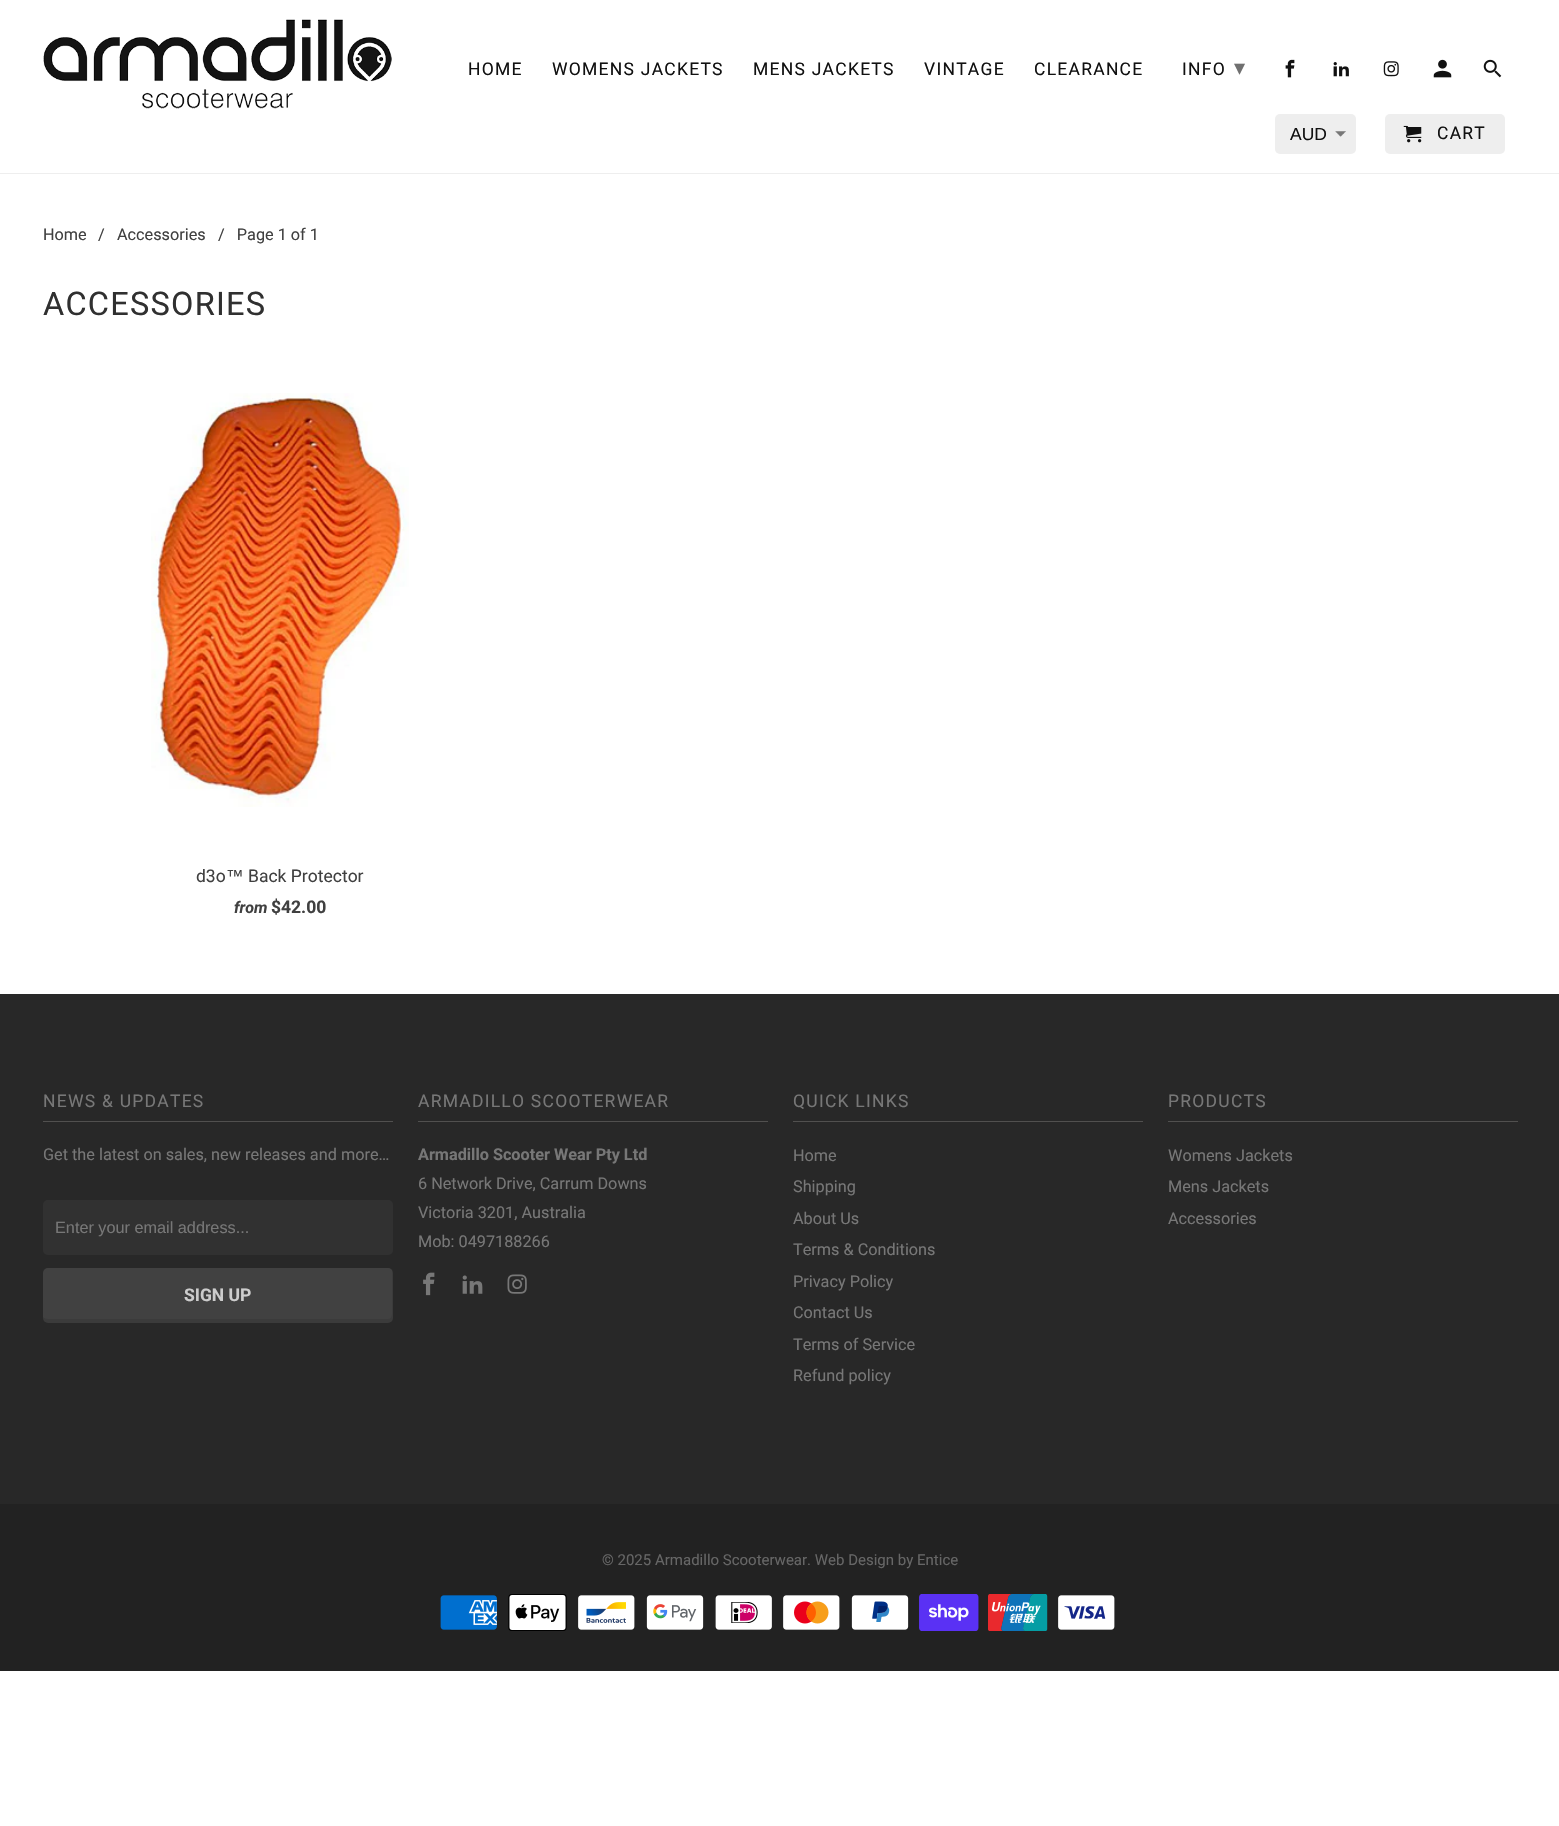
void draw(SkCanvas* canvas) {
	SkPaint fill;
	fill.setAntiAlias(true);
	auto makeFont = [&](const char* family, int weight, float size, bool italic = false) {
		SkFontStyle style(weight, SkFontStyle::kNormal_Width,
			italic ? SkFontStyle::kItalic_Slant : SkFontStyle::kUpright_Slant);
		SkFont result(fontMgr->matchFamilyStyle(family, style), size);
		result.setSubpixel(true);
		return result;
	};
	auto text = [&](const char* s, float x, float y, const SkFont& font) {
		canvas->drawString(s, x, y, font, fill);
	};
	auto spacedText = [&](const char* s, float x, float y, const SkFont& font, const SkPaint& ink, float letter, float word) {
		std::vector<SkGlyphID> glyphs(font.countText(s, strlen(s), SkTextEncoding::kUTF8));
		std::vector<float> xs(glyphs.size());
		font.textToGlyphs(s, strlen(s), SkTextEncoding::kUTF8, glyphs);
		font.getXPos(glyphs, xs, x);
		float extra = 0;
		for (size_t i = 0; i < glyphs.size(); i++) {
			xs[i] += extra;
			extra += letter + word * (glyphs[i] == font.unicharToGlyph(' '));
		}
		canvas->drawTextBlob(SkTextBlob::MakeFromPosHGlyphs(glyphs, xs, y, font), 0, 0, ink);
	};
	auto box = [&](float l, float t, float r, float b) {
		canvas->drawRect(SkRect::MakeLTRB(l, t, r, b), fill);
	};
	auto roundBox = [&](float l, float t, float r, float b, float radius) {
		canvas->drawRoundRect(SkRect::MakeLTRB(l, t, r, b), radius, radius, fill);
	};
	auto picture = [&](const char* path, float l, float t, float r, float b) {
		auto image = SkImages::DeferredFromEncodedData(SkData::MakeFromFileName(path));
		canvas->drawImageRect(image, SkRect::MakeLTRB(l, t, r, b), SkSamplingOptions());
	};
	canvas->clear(0xFFFFFFFF);
	fill.setColor(0xFFEEEEEE);
	box(0, 173, 1559, 174);
	picture("image0.png", 43, 19, 392, 109);
	picture("image1.png", 1285, 59, 1295, 78);
	picture("image2.png", 1333, 62, 1349, 77);
	picture("image3.png", 1383, 61, 1399, 77);
	picture("image4.png", 1433, 59, 1452, 78);
	picture("image5.png", 1483, 59, 1502, 78);
	roundBox(1275, 114, 1356, 154, 5);
	picture("image6.png", 1335, 131, 1346, 137);
	roundBox(1385, 114, 1505, 154, 5);
	picture("image7.png", 1403, 125, 1422, 143);
	picture("image8.png", 151, 393, 409, 807);
	fill.setColor(0xFF282828);
	box(0, 994, 1559, 1504);
	fill.setColor(0xFF51504F);
	box(43, 1121, 393, 1122);
	fill.setColor(0xFF313131);
	roundBox(43, 1200, 393, 1255, 5);
	fill.setColor(0xFF414141);
	roundBox(43, 1268, 393, 1323, 5);
	fill.setColor(0x1A000000);
	canvas->drawPath(SkPathBuilder().moveTo(43, 1317).lineTo(43, 1318).cubicTo(43, 1321, 45, 1323, 48, 1323).lineTo(388, 1323).cubicTo(391, 1323, 393, 1321, 393, 1318).lineTo(393, 1273).cubicTo(393, 1272, 393, 1271, 392, 1270).lineTo(392, 1314).cubicTo(392, 1317, 390, 1319, 388, 1319).lineTo(48, 1319).cubicTo(46, 1319, 44, 1318, 43, 1317).close().detach(), fill);
	fill.setColor(0xFF51504F);
	box(418, 1121, 768, 1122);
	picture("image9.png", 423, 1272, 435, 1296);
	picture("image10.png", 462, 1275, 483, 1294);
	picture("image11.png", 507, 1274, 527, 1294);
	box(793, 1121, 1143, 1122);
	box(1168, 1121, 1518, 1122);
	fill.setColor(0xFF222222);
	box(0, 1504, 1559, 1671);
	picture("image12.png", 440, 1595, 497, 1630);
	picture("image13.png", 508, 1594, 567, 1631);
	picture("image14.png", 578, 1595, 635, 1630);
	picture("image15.png", 646, 1595, 704, 1630);
	picture("image16.png", 715, 1595, 772, 1630);
	picture("image17.png", 783, 1595, 840, 1630);
	picture("image18.png", 851, 1595, 909, 1630);
	picture("image19.png", 919, 1594, 979, 1631);
	picture("image20.png", 988, 1594, 1048, 1631);
	picture("image21.png", 1058, 1595, 1115, 1630);
	auto font1 = makeFont("Roboto", 400, 17.5f);
	fill.setColor(0xFF111111);
	spacedText("HOME", 468, 75, font1, fill, 1.25f, 0);
	spacedText("WOMENS JACKETS", 552, 75, font1, fill, 1.25f, 0);
	spacedText("MENS JACKETS", 753, 75, font1, fill, 1.25f, 0);
	spacedText("VINTAGE", 924, 75, font1, fill, 1.25f, 0);
	spacedText("CLEARANCE", 1034, 75, font1, fill, 1.25f, 0);
	spacedText("INFO", 1182, 75, font1, fill, 1.25f, 0);
	auto font2 = makeFont("DejaVu Sans", 400, 22);
	fill.setColor(0xFF707070);
	spacedText("▾", 1234, 75, font2, fill, 1.25f, 0);
	auto font3 = makeFont("Liberation Sans", 400, 17.5f);
	fill.setColor(0xFF111111);
	text("AUD", 1290, 140, font3);
	spacedText("CART", 1437, 139, font1, fill, 1.25f, 0);
	auto font4 = makeFont("Roboto", 400, 16.25f);
	fill.setColor(0xFF404040);
	text("Home", 43, 240, font4);
	text("/", 98, 240, font4);
	text("Accessories", 117, 240, font4);
	text("/   Page 1 of 1", 218, 240, font4);
	auto font5 = makeFont("Roboto", 400, 32.5f);
	fill.setColor(0xFF303030);
	spacedText("ACCESSORIES", 43, 315, font5, fill, 1.25f, 0);
	fill.setColor(0xFF404040);
	text("d3o", 196, 882, font1);
	text("™", 226, 882, font3);
	text("Back Protector", 248, 882, font1);
	auto font6 = makeFont("Roboto", 700, 16, true);
	text("from", 234, 913, font6);
	auto font7 = makeFont("Roboto", 700, 17.5f);
	text("$42.00", 271, 913, font7);
	fill.setColor(0xFF777777);
	spacedText("NEWS & UPDATES", 43, 1107, font1, fill, 1.25f, 0);
	text("Get the latest on sales, new releases and more…", 43, 1160, font4);
	auto font8 = makeFont("Liberation Sans", 400, 16.25f);
	text("Enter your email address...", 55, 1233, font8);
	fill.setColor(0xFFCCCCCC);
	text("SIGN UP", 184, 1301, font7);
	fill.setColor(0xFF777777);
	spacedText("ARMADILLO SCOOTERWEAR", 418, 1107, font1, fill, 1.25f, 0);
	auto font9 = makeFont("Roboto", 700, 16.25f);
	text("Armadillo Scooter Wear Pty Ltd", 418, 1160, font9);
	text("6 Network Drive, Carrum Downs", 418, 1189, font4);
	text("Victoria 3201, Australia", 418, 1218, font4);
	text("Mob: 0497188266", 418, 1247, font4);
	spacedText("QUICK LINKS", 793, 1107, font1, fill, 1.25f, 0);
	text("Home", 793, 1161, font4);
	text("Shipping", 793, 1192, font4);
	text("About Us", 793, 1224, font4);
	text("Terms & Conditions", 793, 1255, font4);
	text("Privacy Policy", 793, 1287, font4);
	text("Contact Us", 793, 1318, font4);
	text("Terms of Service", 793, 1350, font4);
	text("Refund policy", 793, 1381, font4);
	spacedText("PRODUCTS", 1168, 1107, font1, fill, 1.25f, 0);
	text("Womens Jackets", 1168, 1161, font4);
	text("Mens Jackets", 1168, 1192, font4);
	text("Accessories", 1168, 1224, font4);
	auto font10 = makeFont("Roboto", 400, 15);
	fill.setColor(0xFF666666);
	text("© 2025 Armadillo Scooterwear. Web Design by Entice", 602, 1565, font10);
}
